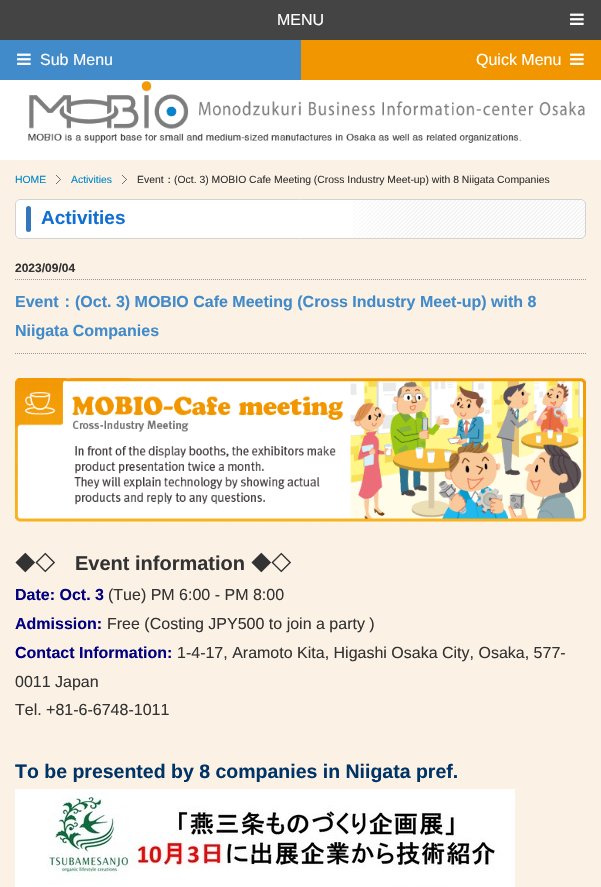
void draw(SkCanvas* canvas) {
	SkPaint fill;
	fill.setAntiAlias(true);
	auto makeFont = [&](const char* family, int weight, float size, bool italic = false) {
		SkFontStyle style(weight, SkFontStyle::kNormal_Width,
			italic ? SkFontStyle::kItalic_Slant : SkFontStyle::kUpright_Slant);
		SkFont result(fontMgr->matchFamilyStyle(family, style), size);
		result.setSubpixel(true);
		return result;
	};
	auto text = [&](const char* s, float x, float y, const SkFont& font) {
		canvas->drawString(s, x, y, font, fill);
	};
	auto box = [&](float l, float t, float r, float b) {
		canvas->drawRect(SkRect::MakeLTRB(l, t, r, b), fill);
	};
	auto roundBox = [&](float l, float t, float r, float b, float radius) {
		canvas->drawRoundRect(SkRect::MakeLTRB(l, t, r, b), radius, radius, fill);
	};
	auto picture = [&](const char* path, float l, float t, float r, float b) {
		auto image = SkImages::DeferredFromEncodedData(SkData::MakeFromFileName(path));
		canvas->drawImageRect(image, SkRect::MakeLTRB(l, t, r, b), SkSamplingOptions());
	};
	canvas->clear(0xFFFFFFFF);
	fill.setColor(0xFF444444);
	box(0, 0, 601, 40);
	picture("image0.png", 570, 13, 584, 25);
	fill.setColor(0xFF428BCA);
	box(0, 40, 301, 80);
	picture("image1.png", 17, 53, 31, 65);
	fill.setColor(0xFFF29600);
	box(301, 40, 601, 80);
	picture("image2.png", 570, 53, 584, 65);
	picture("image3.png", 29, 81, 585, 129);
	picture("image4.png", 27, 133, 522, 143);
	fill.setColor(0xFFFBF1E4);
	box(0, 160, 601, 887);
	picture("image5.png", 56, 175, 61, 184);
	picture("image5.png", 122, 175, 127, 184);
	fill.setColor(0xFFFFFFFF);
	roundBox(15, 199, 586, 239, 5);
	picture("image6.png", 353, 199, 585, 239);
	fill.setStyle(SkPaint::kStroke_Style);
	fill.setStrokeWidth(1);
	fill.setColor(0xFFD2D2D2);
	canvas->drawRoundRect(SkRect::MakeLTRB(15.5f, 199.5f, 585.5f, 238.5f), 4.5f, 4.5f, fill);
	fill.setStyle(SkPaint::kFill_Style);
	fill.setColor(0xFF3476BB);
	roundBox(26, 206, 31, 232, 2.5f);
	fill.setStyle(SkPaint::kStroke_Style);
	fill.setColor(0xFF999999);
	fill.setPathEffect(SkDashPathEffect::Make({{1, 1}}, 0));
	canvas->drawPath(SkPathBuilder().moveTo(15, 279.5f).lineTo(586, 279.5f).detach(), fill);
	fill.setPathEffect(nullptr);
	fill.setPathEffect(SkDashPathEffect::Make({{1, 1}}, 0));
	canvas->drawPath(SkPathBuilder().moveTo(15, 353.5f).lineTo(586, 353.5f).detach(), fill);
	fill.setPathEffect(nullptr);
	picture("image7.png", 15, 378, 586, 522);
	picture("image8.png", 15, 789, 515, 887);
	auto font1 = makeFont("Liberation Sans", 400, 16);
	fill.setStyle(SkPaint::kFill_Style);
	fill.setColor(0xFFFFFFFF);
	text("MENU", 277, 25, font1);
	text("Sub Menu", 40, 65, font1);
	text("Quick Menu", 476, 65, font1);
	auto font2 = makeFont("Liberation Sans", 400, 10.4f);
	fill.setColor(0xFF0086C9);
	text("HOME", 15, 183, font2);
	text("Activities", 71, 183, font2);
	fill.setColor(0xFF333333);
	text("Event", 137, 183, font2);
	auto font3 = makeFont("WenQuanYi Zen Hei", 500, 10.4f);
	text("：", 164, 183, font3);
	text("(Oct. 3) MOBIO Cafe Meeting (Cross Industry Meet-up) with 8 Niigata Companies", 174, 183, font2);
	auto font4 = makeFont("Liberation Sans", 700, 19);
	fill.setColor(0xFF1170CF);
	text("Activities", 41, 224, font4);
	auto font5 = makeFont("Liberation Sans", 700, 12);
	fill.setColor(0xFF333333);
	text("2023/09/04", 15, 272, font5);
	auto font6 = makeFont("Liberation Sans", 700, 16);
	fill.setColor(0xFF428BCA);
	text("Event", 15, 307, font6);
	auto font7 = makeFont("WenQuanYi Zen Hei", 700, 16);
	text("：", 59, 307, font7);
	text("(Oct. 3) MOBIO Cafe Meeting (Cross Industry Meet-up) with 8", 75, 307, font6);
	text("Niigata Companies", 15, 336, font6);
	auto font8 = makeFont("WenQuanYi Zen Hei", 700, 20);
	fill.setColor(0xFF333333);
	text("◆◇", 15, 570, font8);
	auto font9 = makeFont("Liberation Sans", 700, 20);
	text("Event information", 75, 570, font9);
	text("◆◇", 251, 570, font8);
	fill.setColor(0xFF000080);
	text("Date: Oct. 3", 15, 600, font6);
	fill.setColor(0xFF333333);
	text("(Tue) PM 6:00 - PM 8:00", 108, 600, font1);
	fill.setColor(0xFF000080);
	text("Admission:", 15, 629, font6);
	fill.setColor(0xFF333333);
	text("Free (Costing JPY500 to join a party )", 107, 629, font1);
	fill.setColor(0xFF000080);
	text("Contact Information:", 15, 658, font6);
	fill.setColor(0xFF333333);
	text("1-4-17, Aramoto Kita, Higashi Osaka City, Osaka, 577-", 177, 658, font1);
	text("0011 Japan", 15, 687, font1);
	text("Tel. +81-6-6748-1011", 15, 715, font1);
	auto font10 = makeFont("Liberation Sans", 700, 19.5f);
	fill.setColor(0xFF003366);
	text("To be presented by 8 companies in Niigata pref.", 15, 778, font10);
}
